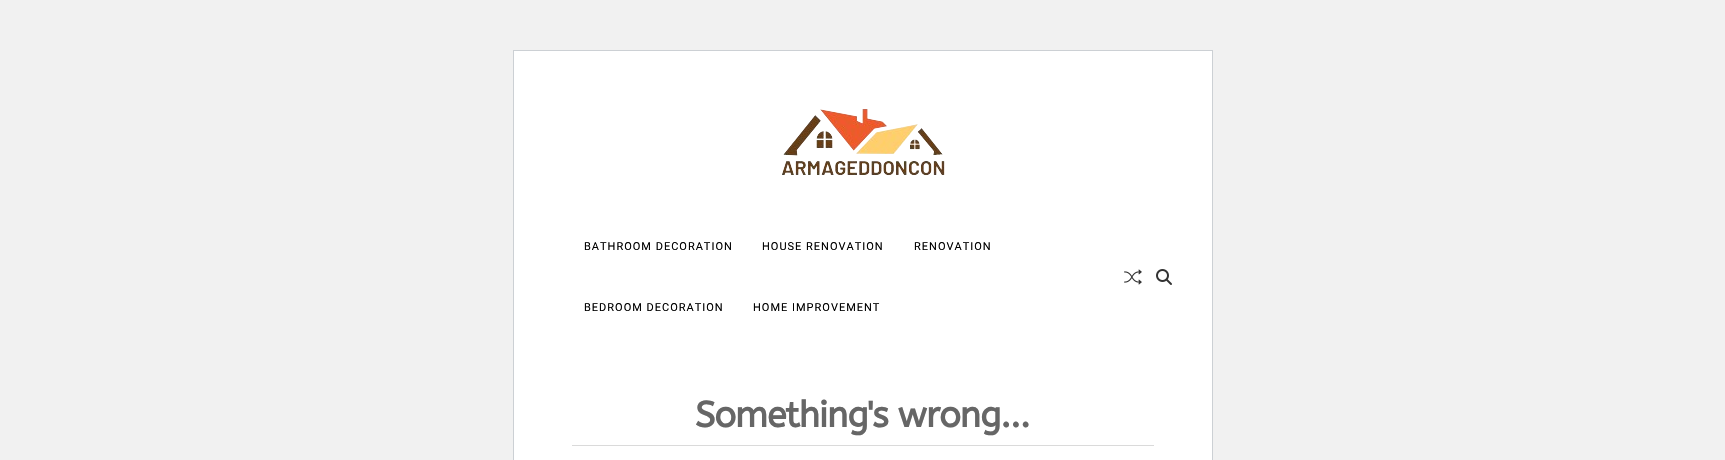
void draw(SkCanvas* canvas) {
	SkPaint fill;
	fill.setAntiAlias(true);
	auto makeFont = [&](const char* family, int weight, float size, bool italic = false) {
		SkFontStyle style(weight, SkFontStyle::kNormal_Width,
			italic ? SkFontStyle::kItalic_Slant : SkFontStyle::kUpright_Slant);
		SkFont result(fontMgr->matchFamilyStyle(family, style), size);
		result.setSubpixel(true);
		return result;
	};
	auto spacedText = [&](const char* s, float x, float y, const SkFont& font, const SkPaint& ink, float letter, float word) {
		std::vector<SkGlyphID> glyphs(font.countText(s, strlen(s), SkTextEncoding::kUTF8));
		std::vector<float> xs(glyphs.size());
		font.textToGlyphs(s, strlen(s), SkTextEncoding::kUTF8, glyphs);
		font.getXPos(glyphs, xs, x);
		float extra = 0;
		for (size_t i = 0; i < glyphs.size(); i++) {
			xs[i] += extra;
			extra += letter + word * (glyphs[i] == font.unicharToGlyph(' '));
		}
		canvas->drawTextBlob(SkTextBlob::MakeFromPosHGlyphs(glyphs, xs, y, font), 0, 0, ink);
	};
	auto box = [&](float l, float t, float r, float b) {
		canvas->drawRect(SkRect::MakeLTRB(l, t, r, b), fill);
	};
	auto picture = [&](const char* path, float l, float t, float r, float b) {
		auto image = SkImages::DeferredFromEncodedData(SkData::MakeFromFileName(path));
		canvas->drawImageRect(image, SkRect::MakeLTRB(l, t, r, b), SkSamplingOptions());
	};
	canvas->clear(0xFFF1F1F1);
	fill.setColor(0xFFFFFFFF);
	canvas->drawRect(SkRect::MakeLTRB(513.5f, 50.5f, 1212.5f, 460.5f), fill);
	fill.setStyle(SkPaint::kStroke_Style);
	fill.setStrokeWidth(1);
	fill.setColor(0xFFCCD0D4);
	canvas->drawRect(SkRect::MakeLTRB(513.5f, 50.5f, 1212.5f, 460.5f), fill);
	picture("image0.png", 782, 109, 945, 176);
	picture("image1.png", 1124, 269, 1142, 285);
	picture("image2.png", 1156, 269, 1172, 285);
	fill.setStyle(SkPaint::kFill_Style);
	fill.setColor(0xFFDADADA);
	box(572, 445, 1154, 446);
	auto font1 = makeFont("Roboto", 400, 11);
	fill.setColor(0xFF000000);
	spacedText("BATHROOM DECORATION", 584, 250, font1, fill, 1, 0);
	spacedText("HOUSE RENOVATION", 762, 250, font1, fill, 1, 0);
	spacedText("RENOVATION", 914, 250, font1, fill, 1, 0);
	spacedText("BEDROOM DECORATION", 584, 311, font1, fill, 1, 0);
	spacedText("HOME IMPROVEMENT", 753, 311, font1, fill, 1, 0);
	auto font2 = makeFont("ABeeZee", 700, 36);
	fill.setColor(0xFF666666);
	spacedText("Something's wrong...", 695, 427, font2, fill, -1, 0);
}
